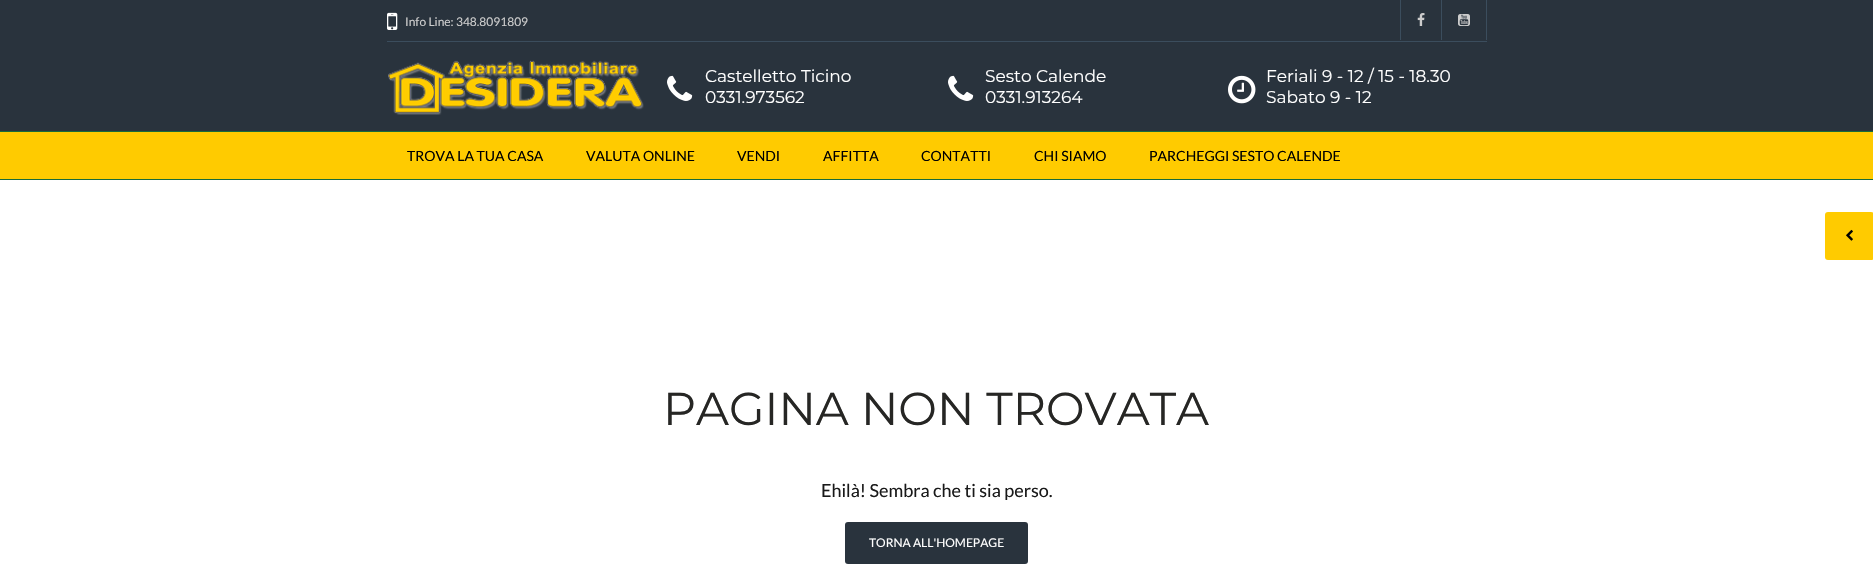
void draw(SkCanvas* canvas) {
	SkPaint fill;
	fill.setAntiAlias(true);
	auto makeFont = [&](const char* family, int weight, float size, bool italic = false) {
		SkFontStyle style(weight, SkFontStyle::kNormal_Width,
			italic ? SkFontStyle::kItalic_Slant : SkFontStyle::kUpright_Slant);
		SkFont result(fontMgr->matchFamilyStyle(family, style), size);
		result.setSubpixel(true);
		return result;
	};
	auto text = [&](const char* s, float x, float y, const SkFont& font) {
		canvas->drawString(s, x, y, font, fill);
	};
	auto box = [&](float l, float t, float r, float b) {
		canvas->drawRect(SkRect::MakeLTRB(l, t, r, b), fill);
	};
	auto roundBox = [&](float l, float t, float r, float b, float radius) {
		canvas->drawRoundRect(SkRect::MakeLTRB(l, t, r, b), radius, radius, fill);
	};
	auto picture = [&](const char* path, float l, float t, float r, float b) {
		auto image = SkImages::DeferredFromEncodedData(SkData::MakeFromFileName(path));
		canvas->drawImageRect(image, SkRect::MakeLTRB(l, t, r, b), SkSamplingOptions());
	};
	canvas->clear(0xFFFFFFFF);
	fill.setColor(0xFF29333D);
	box(0, 0, 1873, 131);
	fill.setColor(0xFF3B4D5D);
	box(387, 41, 1487, 42);
	picture("image0.png", 387, 12, 398, 30);
	box(1441, 0, 1442, 40);
	box(1400, 0, 1401, 40);
	picture("image1.png", 1417, 13, 1425, 26);
	box(1486, 0, 1487, 40);
	picture("image2.png", 1458, 14, 1470, 26);
	picture("image3.png", 388, 60, 644, 115);
	picture("image4.png", 667, 75, 693, 101);
	picture("image4.png", 948, 75, 974, 101);
	picture("image5.png", 1228, 75, 1256, 104);
	fill.setColor(0xFFFFCB00);
	box(0, 132, 1873, 179);
	fill.setColor(0xFF186B3B);
	box(0, 131, 1873, 132);
	box(0, 179, 1873, 180);
	fill.setColor(0xFFFFCB00);
	roundBox(1825, 212, 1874, 260, 3);
	picture("image6.png", 1846, 229, 1853, 241);
	fill.setColor(0xFF29333D);
	roundBox(845, 522, 1028, 564, 3);
	auto font1 = makeFont("Lato", 400, 12);
	fill.setColor(0xFFCCCCCC);
	text("Info Line: 348.8091809", 405, 26, font1);
	auto font2 = makeFont("Montserrat", 400, 17);
	fill.setColor(0xFFFFFFFF);
	text("Castelletto Ticino", 705, 82, font2);
	text("0331.973562", 705, 103, font2);
	text("Sesto Calende", 985, 82, font2);
	text("0331.913264", 985, 103, font2);
	text("Feriali 9 - 12 / 15 - 18.30", 1266, 82, font2);
	text("Sabato 9 - 12", 1266, 103, font2);
	auto font3 = makeFont("Lato", 400, 14);
	fill.setColor(0xFF000000);
	text("TROVA LA TUA CASA", 407, 161, font3);
	text("VALUTA ONLINE", 586, 161, font3);
	text("VENDI", 737, 161, font3);
	text("AFFITTA", 823, 161, font3);
	text("CONTATTI", 921, 161, font3);
	text("CHI SIAMO", 1034, 161, font3);
	text("PARCHEGGI SESTO CALENDE", 1149, 161, font3);
	auto font4 = makeFont("Montserrat", 400, 46);
	fill.setColor(0xFF262624);
	text("PAGINA NON TROVATA", 663, 425, font4);
	auto font5 = makeFont("Lato", 400, 18);
	fill.setColor(0xFF191919);
	text("Ehilà! Sembra che ti sia perso.", 821, 497, font5);
	fill.setColor(0xFFFFFFFF);
	text("TORNA ALL'HOMEPAGE", 869, 547, font1);
}
